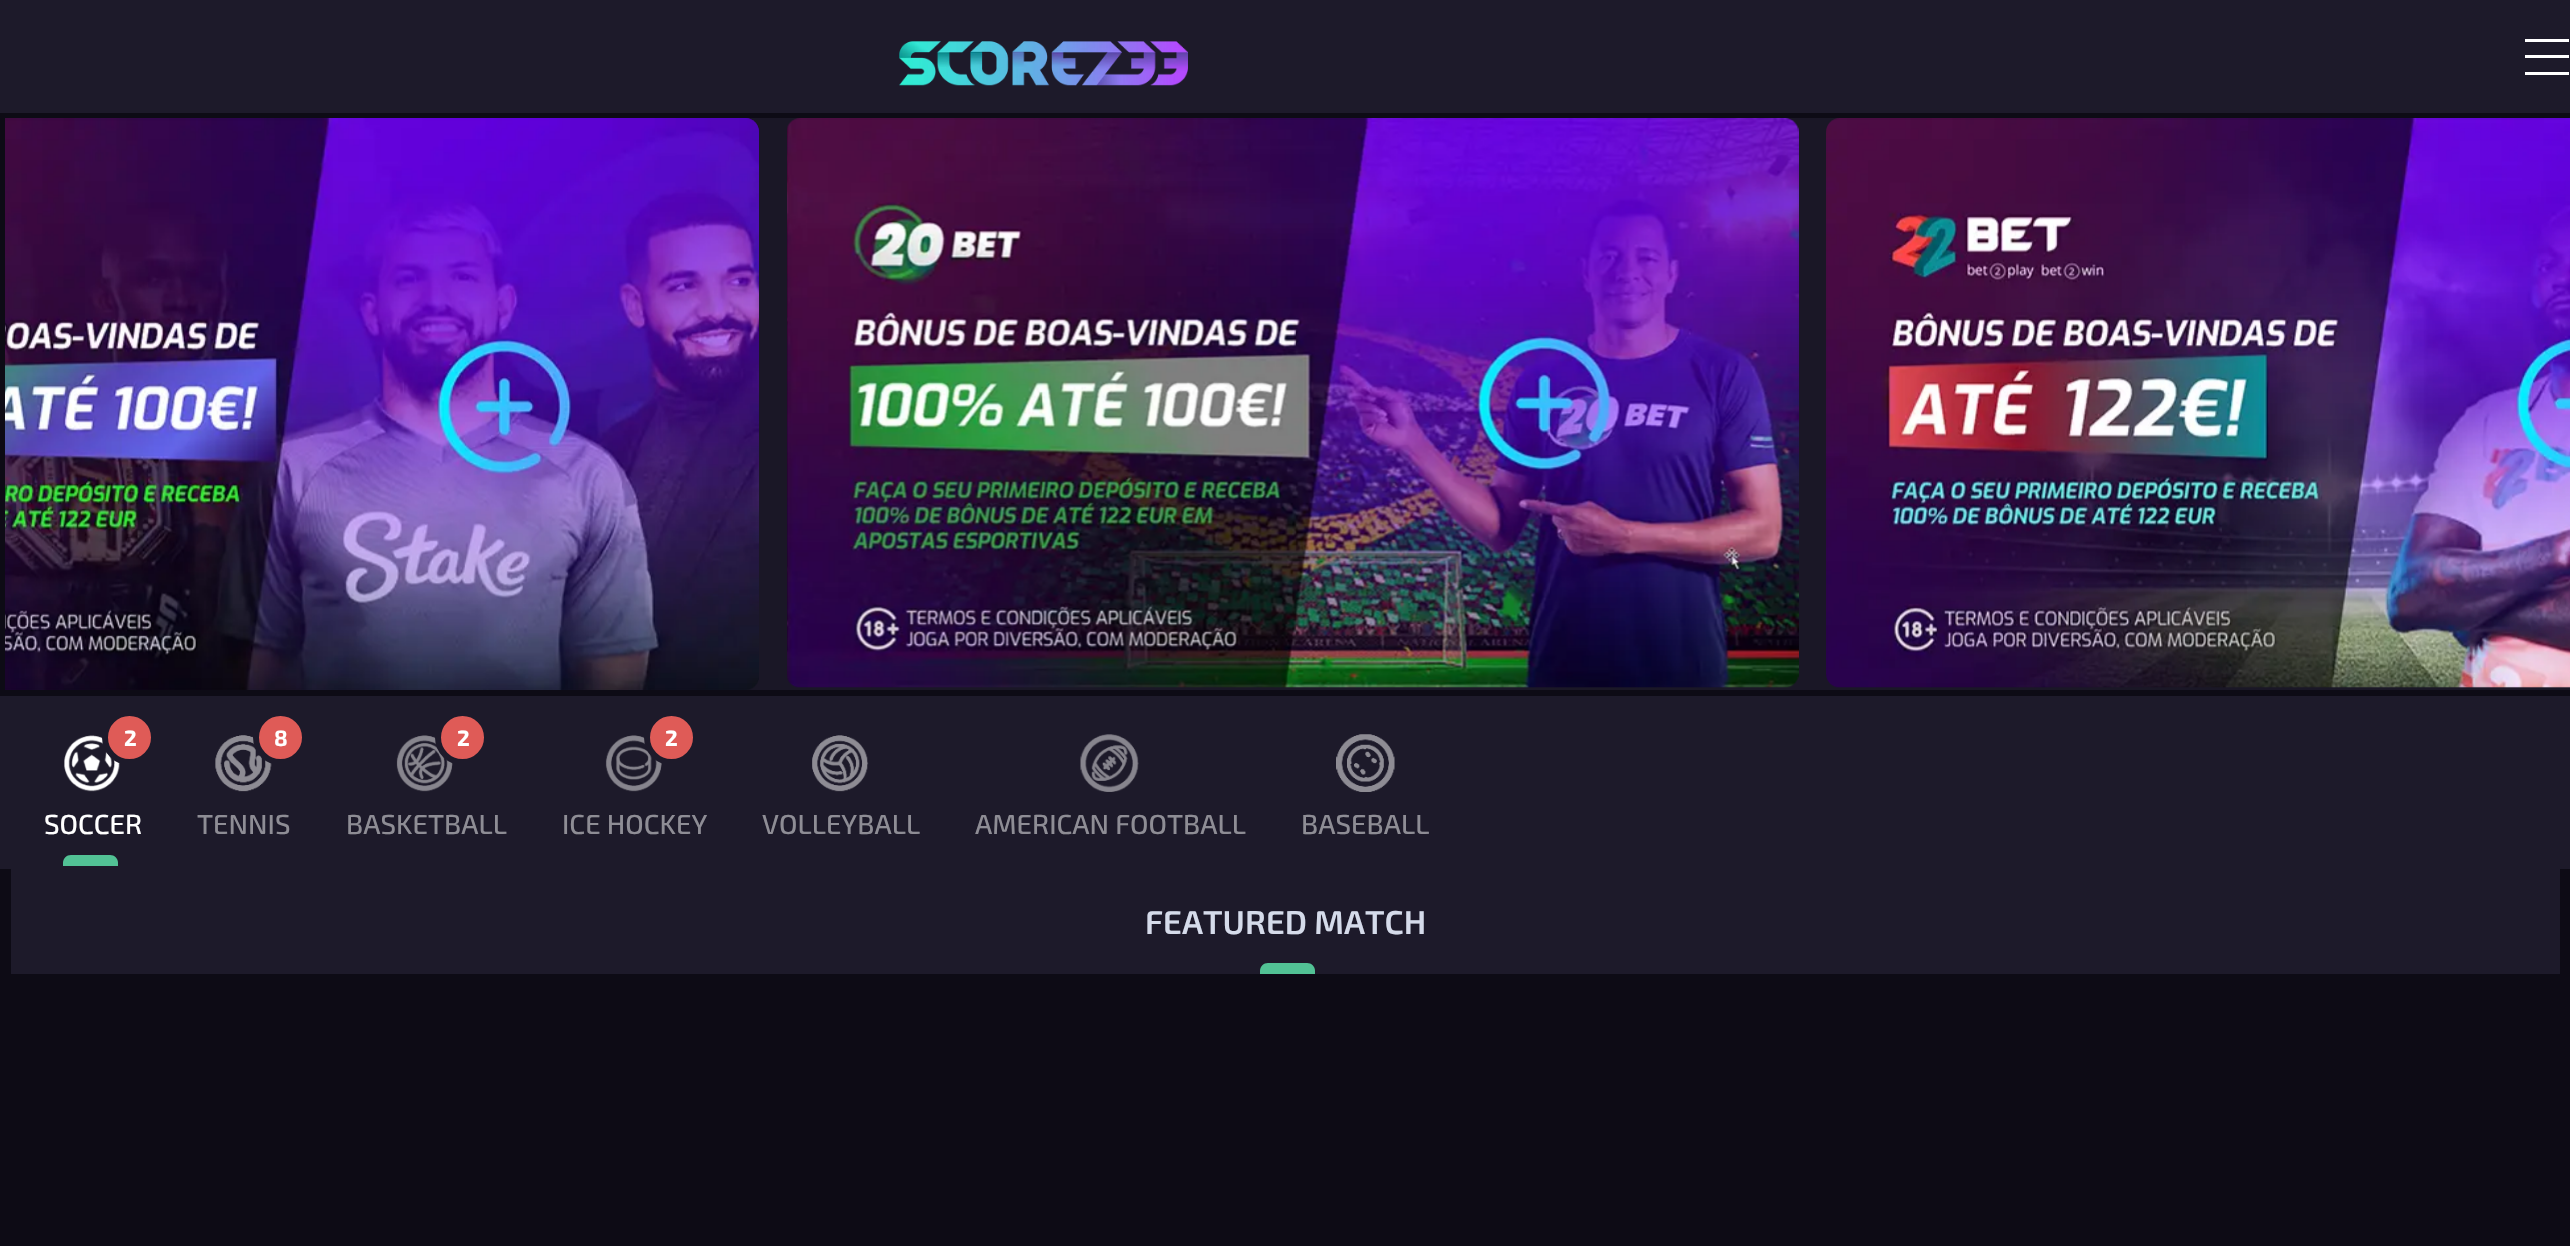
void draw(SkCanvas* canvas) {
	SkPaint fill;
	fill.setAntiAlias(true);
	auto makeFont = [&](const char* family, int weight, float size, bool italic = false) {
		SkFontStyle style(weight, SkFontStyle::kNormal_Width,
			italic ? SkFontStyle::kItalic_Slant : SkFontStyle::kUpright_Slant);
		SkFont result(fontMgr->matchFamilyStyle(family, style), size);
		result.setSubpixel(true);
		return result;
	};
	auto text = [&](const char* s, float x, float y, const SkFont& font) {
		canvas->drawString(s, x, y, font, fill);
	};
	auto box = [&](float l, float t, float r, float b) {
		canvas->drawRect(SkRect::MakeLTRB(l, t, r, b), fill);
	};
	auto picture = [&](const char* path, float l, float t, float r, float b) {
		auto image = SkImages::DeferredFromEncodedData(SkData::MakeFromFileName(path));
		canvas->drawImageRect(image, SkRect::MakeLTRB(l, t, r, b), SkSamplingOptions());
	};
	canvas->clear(0xFF0D0B15);
	fill.setColor(0xFF1D1A2A);
	box(0, 0, 2570, 113);
	picture("image0.png", 899, 41, 1188, 86);
	fill.setColor(0xFFFFFFFF);
	box(2525, 39, 2569, 42);
	box(2525, 55, 2569, 58);
	box(2525, 72, 2569, 75);
	fill.setColor(0xFF1A1726);
	box(746, 118, 2570, 690);
	picture("image1.png", 5, 118, 759, 690);
	picture("image2.png", 327, 118, 759, 680);
	picture("image3.png", 787, 118, 1799, 688);
	picture("image4.png", 1826, 118, 2570, 688);
	fill.setColor(0xFF1D1A2A);
	box(0, 696, 2570, 869);
	picture("image5.png", 64, 735, 120, 792);
	fill.setColor(0xFFDF5B57);
	canvas->drawCircle(129.5f, 737.5f, 24.5f, fill);
	fill.setStyle(SkPaint::kStroke_Style);
	fill.setStrokeWidth(6);
	fill.setColor(0xFF1D1A2A);
	canvas->drawCircle(129.5f, 737.5f, 24.5f, fill);
	fill.setStyle(SkPaint::kFill_Style);
	fill.setColor(0xFF52C295);
	canvas->drawPath(SkPathBuilder().moveTo(71, 855).lineTo(110, 855).cubicTo(114.5f, 855, 118, 858.5f, 118, 863).lineTo(118, 866).lineTo(63, 866).lineTo(63, 863).cubicTo(63, 858.5f, 66.5f, 855, 71, 855).close().detach(), fill);
	picture("image6.png", 215, 735, 272, 792);
	fill.setColor(0xFFDF5B57);
	canvas->drawCircle(280.5f, 737.5f, 24.5f, fill);
	fill.setStyle(SkPaint::kStroke_Style);
	fill.setColor(0xFF1D1A2A);
	canvas->drawCircle(280.5f, 737.5f, 24.5f, fill);
	picture("image7.png", 396, 735, 453, 792);
	fill.setStyle(SkPaint::kFill_Style);
	fill.setColor(0xFFDF5B57);
	canvas->drawCircle(462.5f, 737.5f, 24.5f, fill);
	fill.setStyle(SkPaint::kStroke_Style);
	fill.setColor(0xFF1D1A2A);
	canvas->drawCircle(462.5f, 737.5f, 24.5f, fill);
	picture("image8.png", 605, 735, 662, 792);
	fill.setStyle(SkPaint::kFill_Style);
	fill.setColor(0xFFDF5B57);
	canvas->drawCircle(671.5f, 737.5f, 24.5f, fill);
	fill.setStyle(SkPaint::kStroke_Style);
	fill.setColor(0xFF1D1A2A);
	canvas->drawCircle(671.5f, 737.5f, 24.5f, fill);
	picture("image9.png", 812, 735, 869, 792);
	picture("image10.png", 1080, 734, 1139, 792);
	picture("image11.png", 1336, 734, 1395, 792);
	fill.setStyle(SkPaint::kFill_Style);
	box(11, 869, 2560, 974);
	fill.setColor(0xFF52C295);
	canvas->drawPath(SkPathBuilder().moveTo(1268, 963).lineTo(1307, 963).cubicTo(1311.5f, 963, 1315, 966.5f, 1315, 971).lineTo(1315, 974).lineTo(1260, 974).lineTo(1260, 971).cubicTo(1260, 966.5f, 1263.5f, 963, 1268, 963).close().detach(), fill);
	auto font1 = makeFont("Exo 2", 700, 22);
	fill.setColor(0xFFFFFFFF);
	text("2", 124, 746, font1);
	auto font2 = makeFont("Exo 2", 500, 27.5f);
	text("SOCCER", 44, 834, font2);
	text("8", 274, 746, font1);
	fill.setColor(0xFF8E8D95);
	text("TENNIS", 197, 834, font2);
	fill.setColor(0xFFFFFFFF);
	text("2", 457, 746, font1);
	fill.setColor(0xFF8E8D95);
	text("BASKETBALL", 346, 834, font2);
	fill.setColor(0xFFFFFFFF);
	text("2", 665, 746, font1);
	fill.setColor(0xFF8E8D95);
	text("ICE HOCKEY", 562, 834, font2);
	text("VOLLEYBALL", 762, 834, font2);
	text("AMERICAN FOOTBALL", 975, 834, font2);
	text("BASEBALL", 1301, 834, font2);
	auto font3 = makeFont("Exo 2", 600, 33);
	fill.setColor(0xFFD5DBEA);
	text("FEATURED MATCH", 1145, 934, font3);
}
